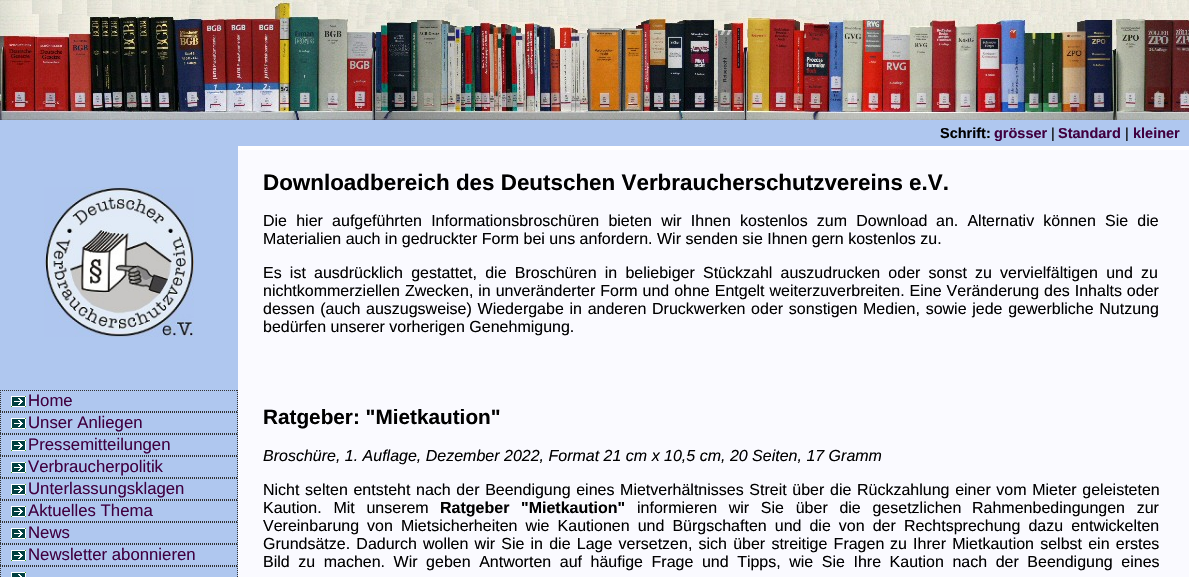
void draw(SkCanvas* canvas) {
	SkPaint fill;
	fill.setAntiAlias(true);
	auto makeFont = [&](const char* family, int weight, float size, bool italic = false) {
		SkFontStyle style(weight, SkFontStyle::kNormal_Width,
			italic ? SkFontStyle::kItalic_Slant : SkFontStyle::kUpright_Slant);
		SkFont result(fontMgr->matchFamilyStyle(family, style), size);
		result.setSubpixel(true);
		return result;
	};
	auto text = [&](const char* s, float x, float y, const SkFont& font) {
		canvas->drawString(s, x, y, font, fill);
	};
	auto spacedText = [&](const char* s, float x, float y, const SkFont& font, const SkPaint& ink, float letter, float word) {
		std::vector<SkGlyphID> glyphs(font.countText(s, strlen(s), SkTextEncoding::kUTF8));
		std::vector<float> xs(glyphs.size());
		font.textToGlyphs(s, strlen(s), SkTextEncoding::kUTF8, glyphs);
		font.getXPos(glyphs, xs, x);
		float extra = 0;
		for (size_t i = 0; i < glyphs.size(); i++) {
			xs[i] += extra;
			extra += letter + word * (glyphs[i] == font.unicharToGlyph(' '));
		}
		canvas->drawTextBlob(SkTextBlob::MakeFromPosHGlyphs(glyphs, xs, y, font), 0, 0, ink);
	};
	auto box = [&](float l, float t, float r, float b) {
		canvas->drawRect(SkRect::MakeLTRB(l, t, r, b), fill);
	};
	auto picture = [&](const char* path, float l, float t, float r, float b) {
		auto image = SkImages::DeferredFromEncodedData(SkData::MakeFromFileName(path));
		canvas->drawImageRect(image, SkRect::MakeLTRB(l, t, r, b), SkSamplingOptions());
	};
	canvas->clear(0xFFFFFFFF);
	picture("image0.png", 0, 0, 1189, 120);
	fill.setColor(0xFFAFC7EF);
	box(0, 120, 1189, 146);
	box(0, 146, 238, 577);
	picture("image1.png", 44, 187, 194, 337);
	picture("image2.png", 11, 396, 26, 407);
	fill.setStyle(SkPaint::kStroke_Style);
	fill.setStrokeWidth(1);
	fill.setColor(0xFF333333);
	fill.setPathEffect(SkDashPathEffect::Make({{1, 1}}, 0));
	canvas->drawPath(SkPathBuilder().moveTo(0, 390.5f).lineTo(238, 390.5f).detach(), fill);
	fill.setPathEffect(nullptr);
	fill.setPathEffect(SkDashPathEffect::Make({{1, 1}}, 0));
	canvas->drawPath(SkPathBuilder().moveTo(237.5f, 390).lineTo(237.5f, 412).detach(), fill);
	fill.setPathEffect(nullptr);
	fill.setPathEffect(SkDashPathEffect::Make({{1, 1}}, 0));
	canvas->drawPath(SkPathBuilder().moveTo(0, 411.5f).lineTo(238, 411.5f).detach(), fill);
	fill.setPathEffect(nullptr);
	fill.setPathEffect(SkDashPathEffect::Make({{1, 1}}, 0));
	canvas->drawPath(SkPathBuilder().moveTo(0.5f, 390).lineTo(0.5f, 412).detach(), fill);
	fill.setPathEffect(nullptr);
	picture("image2.png", 11, 418, 26, 429);
	fill.setPathEffect(SkDashPathEffect::Make({{1, 1}}, 0));
	canvas->drawPath(SkPathBuilder().moveTo(0, 412.5f).lineTo(238, 412.5f).detach(), fill);
	fill.setPathEffect(nullptr);
	fill.setPathEffect(SkDashPathEffect::Make({{1, 1}}, 0));
	canvas->drawPath(SkPathBuilder().moveTo(237.5f, 412).lineTo(237.5f, 434).detach(), fill);
	fill.setPathEffect(nullptr);
	fill.setPathEffect(SkDashPathEffect::Make({{1, 1}}, 0));
	canvas->drawPath(SkPathBuilder().moveTo(0, 433.5f).lineTo(238, 433.5f).detach(), fill);
	fill.setPathEffect(nullptr);
	fill.setPathEffect(SkDashPathEffect::Make({{1, 1}}, 0));
	canvas->drawPath(SkPathBuilder().moveTo(0.5f, 412).lineTo(0.5f, 434).detach(), fill);
	fill.setPathEffect(nullptr);
	picture("image2.png", 11, 440, 26, 451);
	fill.setPathEffect(SkDashPathEffect::Make({{1, 1}}, 0));
	canvas->drawPath(SkPathBuilder().moveTo(0, 434.5f).lineTo(238, 434.5f).detach(), fill);
	fill.setPathEffect(nullptr);
	fill.setPathEffect(SkDashPathEffect::Make({{1, 1}}, 0));
	canvas->drawPath(SkPathBuilder().moveTo(237.5f, 434).lineTo(237.5f, 456).detach(), fill);
	fill.setPathEffect(nullptr);
	fill.setPathEffect(SkDashPathEffect::Make({{1, 1}}, 0));
	canvas->drawPath(SkPathBuilder().moveTo(0, 455.5f).lineTo(238, 455.5f).detach(), fill);
	fill.setPathEffect(nullptr);
	fill.setPathEffect(SkDashPathEffect::Make({{1, 1}}, 0));
	canvas->drawPath(SkPathBuilder().moveTo(0.5f, 434).lineTo(0.5f, 456).detach(), fill);
	fill.setPathEffect(nullptr);
	picture("image2.png", 11, 462, 26, 473);
	fill.setPathEffect(SkDashPathEffect::Make({{1, 1}}, 0));
	canvas->drawPath(SkPathBuilder().moveTo(0, 456.5f).lineTo(238, 456.5f).detach(), fill);
	fill.setPathEffect(nullptr);
	fill.setPathEffect(SkDashPathEffect::Make({{1, 1}}, 0));
	canvas->drawPath(SkPathBuilder().moveTo(237.5f, 456).lineTo(237.5f, 478).detach(), fill);
	fill.setPathEffect(nullptr);
	fill.setPathEffect(SkDashPathEffect::Make({{1, 1}}, 0));
	canvas->drawPath(SkPathBuilder().moveTo(0, 477.5f).lineTo(238, 477.5f).detach(), fill);
	fill.setPathEffect(nullptr);
	fill.setPathEffect(SkDashPathEffect::Make({{1, 1}}, 0));
	canvas->drawPath(SkPathBuilder().moveTo(0.5f, 456).lineTo(0.5f, 478).detach(), fill);
	fill.setPathEffect(nullptr);
	picture("image2.png", 11, 484, 26, 495);
	fill.setPathEffect(SkDashPathEffect::Make({{1, 1}}, 0));
	canvas->drawPath(SkPathBuilder().moveTo(0, 478.5f).lineTo(238, 478.5f).detach(), fill);
	fill.setPathEffect(nullptr);
	fill.setPathEffect(SkDashPathEffect::Make({{1, 1}}, 0));
	canvas->drawPath(SkPathBuilder().moveTo(237.5f, 478).lineTo(237.5f, 500).detach(), fill);
	fill.setPathEffect(nullptr);
	fill.setPathEffect(SkDashPathEffect::Make({{1, 1}}, 0));
	canvas->drawPath(SkPathBuilder().moveTo(0, 499.5f).lineTo(238, 499.5f).detach(), fill);
	fill.setPathEffect(nullptr);
	fill.setPathEffect(SkDashPathEffect::Make({{1, 1}}, 0));
	canvas->drawPath(SkPathBuilder().moveTo(0.5f, 478).lineTo(0.5f, 500).detach(), fill);
	fill.setPathEffect(nullptr);
	picture("image2.png", 11, 506, 26, 517);
	fill.setPathEffect(SkDashPathEffect::Make({{1, 1}}, 0));
	canvas->drawPath(SkPathBuilder().moveTo(0, 500.5f).lineTo(238, 500.5f).detach(), fill);
	fill.setPathEffect(nullptr);
	fill.setPathEffect(SkDashPathEffect::Make({{1, 1}}, 0));
	canvas->drawPath(SkPathBuilder().moveTo(237.5f, 500).lineTo(237.5f, 522).detach(), fill);
	fill.setPathEffect(nullptr);
	fill.setPathEffect(SkDashPathEffect::Make({{1, 1}}, 0));
	canvas->drawPath(SkPathBuilder().moveTo(0, 521.5f).lineTo(238, 521.5f).detach(), fill);
	fill.setPathEffect(nullptr);
	fill.setPathEffect(SkDashPathEffect::Make({{1, 1}}, 0));
	canvas->drawPath(SkPathBuilder().moveTo(0.5f, 500).lineTo(0.5f, 522).detach(), fill);
	fill.setPathEffect(nullptr);
	picture("image2.png", 11, 528, 26, 539);
	fill.setPathEffect(SkDashPathEffect::Make({{1, 1}}, 0));
	canvas->drawPath(SkPathBuilder().moveTo(0, 522.5f).lineTo(238, 522.5f).detach(), fill);
	fill.setPathEffect(nullptr);
	fill.setPathEffect(SkDashPathEffect::Make({{1, 1}}, 0));
	canvas->drawPath(SkPathBuilder().moveTo(237.5f, 522).lineTo(237.5f, 544).detach(), fill);
	fill.setPathEffect(nullptr);
	fill.setPathEffect(SkDashPathEffect::Make({{1, 1}}, 0));
	canvas->drawPath(SkPathBuilder().moveTo(0, 543.5f).lineTo(238, 543.5f).detach(), fill);
	fill.setPathEffect(nullptr);
	fill.setPathEffect(SkDashPathEffect::Make({{1, 1}}, 0));
	canvas->drawPath(SkPathBuilder().moveTo(0.5f, 522).lineTo(0.5f, 544).detach(), fill);
	fill.setPathEffect(nullptr);
	picture("image2.png", 11, 550, 26, 561);
	fill.setPathEffect(SkDashPathEffect::Make({{1, 1}}, 0));
	canvas->drawPath(SkPathBuilder().moveTo(0, 544.5f).lineTo(238, 544.5f).detach(), fill);
	fill.setPathEffect(nullptr);
	fill.setPathEffect(SkDashPathEffect::Make({{1, 1}}, 0));
	canvas->drawPath(SkPathBuilder().moveTo(237.5f, 544).lineTo(237.5f, 566).detach(), fill);
	fill.setPathEffect(nullptr);
	fill.setPathEffect(SkDashPathEffect::Make({{1, 1}}, 0));
	canvas->drawPath(SkPathBuilder().moveTo(0, 565.5f).lineTo(238, 565.5f).detach(), fill);
	fill.setPathEffect(nullptr);
	fill.setPathEffect(SkDashPathEffect::Make({{1, 1}}, 0));
	canvas->drawPath(SkPathBuilder().moveTo(0.5f, 544).lineTo(0.5f, 566).detach(), fill);
	fill.setPathEffect(nullptr);
	picture("image3.png", 11, 572, 26, 577);
	fill.setPathEffect(SkDashPathEffect::Make({{1, 1}}, 0));
	canvas->drawPath(SkPathBuilder().moveTo(0, 566.5f).lineTo(238, 566.5f).detach(), fill);
	fill.setPathEffect(nullptr);
	fill.setPathEffect(SkDashPathEffect::Make({{1, 1}}, 0));
	canvas->drawPath(SkPathBuilder().moveTo(237.5f, 566).lineTo(237.5f, 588).detach(), fill);
	fill.setPathEffect(nullptr);
	fill.setPathEffect(SkDashPathEffect::Make({{1, 1}}, 0));
	canvas->drawPath(SkPathBuilder().moveTo(0.5f, 566).lineTo(0.5f, 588).detach(), fill);
	fill.setPathEffect(nullptr);
	fill.setStyle(SkPaint::kFill_Style);
	fill.setColor(0xFFFAFAFF);
	box(238, 150, 1189, 577);
	auto font1 = makeFont("Liberation Sans", 700, 14.5f);
	fill.setColor(0xFF000000);
	text("Schrift:", 940, 138, font1);
	fill.setColor(0xFF400040);
	text("grösser", 994, 138, font1);
	auto font2 = makeFont("Liberation Sans", 400, 14.5f);
	fill.setColor(0xFF000000);
	text("|", 1051, 138, font2);
	fill.setColor(0xFF400040);
	text("Standard", 1058, 138, font1);
	fill.setColor(0xFF000000);
	text("|", 1125, 138, font2);
	fill.setColor(0xFF400040);
	text("kleiner", 1133, 138, font1);
	auto font3 = makeFont("Liberation Sans", 400, 16.75f);
	text("Home", 28, 406, font3);
	text("Unser Anliegen", 28, 428, font3);
	text("Pressemitteilungen", 28, 450, font3);
	text("Verbraucherpolitik", 28, 472, font3);
	text("Unterlassungsklagen", 28, 494, font3);
	text("Aktuelles Thema", 28, 516, font3);
	text("News", 28, 538, font3);
	text("Newsletter abonnieren", 28, 560, font3);
	auto font4 = makeFont("Liberation Sans", 700, 22.4f);
	fill.setColor(0xFF000000);
	text("Downloadbereich des Deutschen Verbraucherschutzvereins e.V.", 263, 190, font4);
	auto font5 = makeFont("Liberation Sans", 400, 16);
	spacedText("Die hier aufgeführten Informationsbroschüren bieten wir Ihnen kostenlos zum Download", 263, 226, font5, fill, 0, 4.75f);
	spacedText("an. Alternativ können Sie die", 936, 226, font5, fill, 0, 4.75f);
	text("Materialien auch in gedruckter Form bei uns anfordern. Wir senden sie Ihnen gern kostenlos zu.", 263, 244, font5);
	spacedText("Es ist ausdrücklich gestattet, die Broschüren in beliebiger Stückzahl auszudrucken oder sonst zu vervielfältigen und zu", 263, 278, font5, fill, 0, 3.75f);
	spacedText("nichtkommerziellen Zwecken, in unveränderter Form und ohne Entgelt weiterzuverbreiten. Eine Veränderung des Inhalts oder", 263, 296, font5, fill, 0, 0.5f);
	spacedText("dessen (auch auszugsweise) Wiedergabe in anderen Druckwerken oder sonstigen Medien, sowie jede gewerbliche Nutzung", 263, 314, font5, fill, 0, 1.25f);
	text("bedürfen unserer vorherigen Genehmigung.", 263, 332, font5);
	auto font6 = makeFont("Liberation Sans", 700, 20.75f);
	text("Ratgeber: \"Mietkaution\"", 263, 424, font6);
	auto font7 = makeFont("Liberation Sans", 400, 16, true);
	text("Broschüre, 1. Auflage, Dezember 2022, Format 21 cm x 10,5 cm, 20 Seiten, 17 Gramm", 263, 461, font7);
	spacedText("Nicht selten entsteht nach der Beendigung eines Mietverhältnisses Streit über die Rückzahlung einer vom Mieter geleisteten", 263, 495, font5, fill, 0, 1.2f);
	spacedText("Kaution. Mit unserem", 263, 513, font5, fill, 0, 7.25f);
	auto font8 = makeFont("Liberation Sans", 700, 16);
	spacedText("Ratgeber \"Mietkaution\"", 440, 513, font8, fill, 0, 7.25f);
	spacedText("informieren wir Sie über die gesetzlichen", 637, 513, font5, fill, 0, 7.25f);
	spacedText("Rahmenbedingungen zur", 972, 513, font5, fill, 0, 7.25f);
	spacedText("Vereinbarung von Mietsicherheiten wie Kautionen und Bürgschaften und die von der Rechtsprechung dazu entwickelten", 263, 531, font5, fill, 0, 3.6f);
	spacedText("Grundsätze. Dadurch wollen wir Sie in die Lage versetzen, sich über streitige Fragen", 263, 549, font5, fill, 0, 1.75f);
	spacedText("zu Ihrer Mietkaution selbst ein erstes", 890, 549, font5, fill, 0, 1.75f);
	spacedText("Bild zu machen. Wir geben Antworten auf häufige Frage und Tipps, wie Sie Ihre Kaution nach der Beendigung eines", 263, 567, font5, fill, 0, 4.1f);
}
